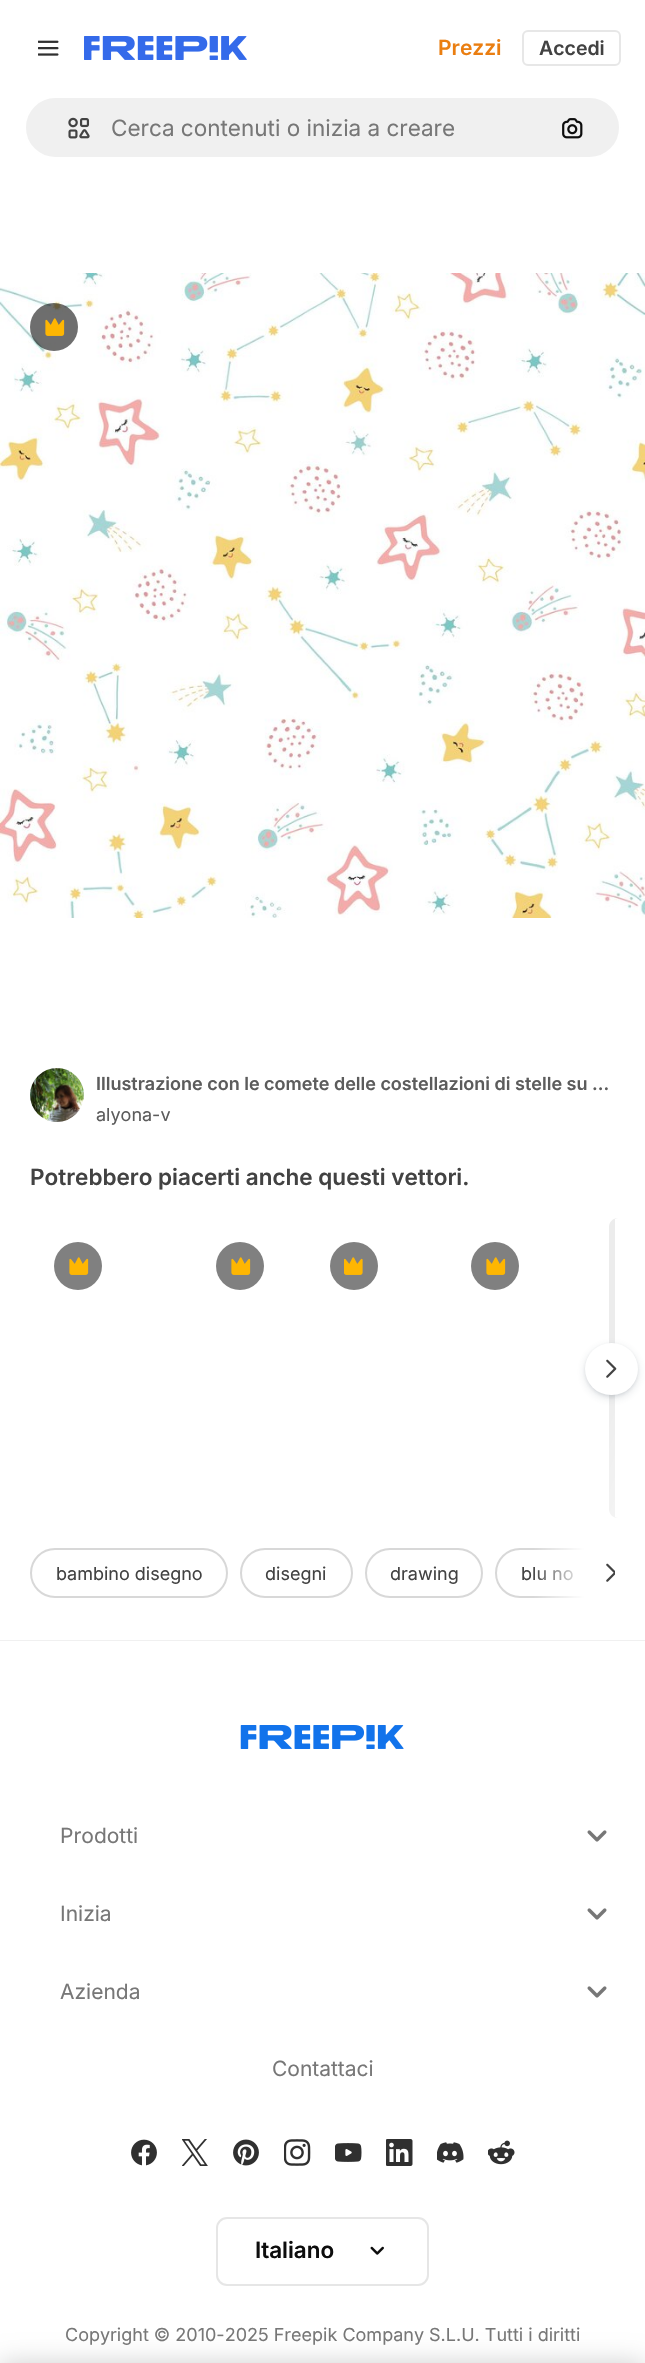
void draw(SkCanvas* canvas) {
	SkPaint fill;
	fill.setAntiAlias(true);
	auto makeFont = [&](const char* family, int weight, float size, bool italic = false) {
		SkFontStyle style(weight, SkFontStyle::kNormal_Width,
			italic ? SkFontStyle::kItalic_Slant : SkFontStyle::kUpright_Slant);
		SkFont result(fontMgr->matchFamilyStyle(family, style), size);
		result.setSubpixel(true);
		return result;
	};
	auto text = [&](const char* s, float x, float y, const SkFont& font) {
		canvas->drawString(s, x, y, font, fill);
	};
	auto box = [&](float l, float t, float r, float b) {
		canvas->drawRect(SkRect::MakeLTRB(l, t, r, b), fill);
	};
	auto roundBox = [&](float l, float t, float r, float b, float radius) {
		canvas->drawRoundRect(SkRect::MakeLTRB(l, t, r, b), radius, radius, fill);
	};
	auto picture = [&](const char* path, float l, float t, float r, float b) {
		auto image = SkImages::DeferredFromEncodedData(SkData::MakeFromFileName(path));
		canvas->drawImageRect(image, SkRect::MakeLTRB(l, t, r, b), SkSamplingOptions());
	};
	canvas->clear(0xFFFFFFFF);
	picture("image0.png", 38, 40, 59, 56);
	picture("image1.png", 84, 36, 247, 60);
	fill.setStyle(SkPaint::kStroke_Style);
	fill.setStrokeWidth(2);
	fill.setColor(0xFFE7E7E7);
	canvas->drawRoundRect(SkRect::MakeLTRB(523, 31, 620, 65), 5, 5, fill);
	fill.setStyle(SkPaint::kFill_Style);
	fill.setColor(0xFFF0F0F0);
	canvas->drawRoundRect(SkRect::MakeLTRB(25, 97, 620, 158), 30.5f, 30.5f, fill);
	fill.setStyle(SkPaint::kStroke_Style);
	fill.setColor(0xFFFFFFFF);
	canvas->drawRoundRect(SkRect::MakeLTRB(25, 97, 620, 158), 30.5f, 30.5f, fill);
	picture("image2.png", 68, 117, 90, 139);
	picture("image3.png", 562, 118, 583, 139);
	picture("image4.png", 0, 273, 645, 918);
	fill.setStyle(SkPaint::kFill_Style);
	fill.setColor(0x990D0D0D);
	canvas->drawCircle(54, 327, 24, fill);
	picture("image5.png", 45, 318, 65, 336);
	picture("image6.png", 30, 1068, 84, 1122);
	fill.setColor(0xFF808080);
	canvas->drawCircle(78, 1266, 24, fill);
	picture("image7.png", 69, 1257, 89, 1275);
	canvas->drawCircle(240, 1266, 24, fill);
	picture("image7.png", 231, 1257, 251, 1275);
	canvas->drawCircle(354, 1266, 24, fill);
	picture("image8.png", 344, 1257, 363, 1275);
	canvas->drawCircle(495, 1266, 24, fill);
	picture("image7.png", 486, 1257, 506, 1275);
	{
		const SkColor colors[] = {0xFFECECEC, 0xFFF5F5F5, 0xFFECECEC};
		const float stops[] = {0.08f, 0.18f, 0.33f};
		const SkPoint ends[] = {{596, 1254}, {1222, 1482}};
		fill.setShader(SkGradientShader::MakeLinear(ends, colors, stops, 3, SkTileMode::kClamp));
		fill.setAlpha(255);
	}
	canvas->drawPath(SkPathBuilder().moveTo(618, 1218).lineTo(615, 1218).lineTo(615, 1518).lineTo(618, 1518).cubicTo(613, 1518, 609, 1514, 609, 1509).lineTo(609, 1227).cubicTo(609, 1222, 613, 1218, 618, 1218).close().detach(), fill);
	fill.setShader(nullptr);
	fill.setColor(0x26374957);
	fill.setMaskFilter(SkMaskFilter::MakeBlur(kNormal_SkBlurStyle, 4));
	canvas->drawRoundRect(SkRect::MakeLTRB(585, 1346, 638, 1398), 26, 26, fill);
	fill.setMaskFilter(nullptr);
	fill.setColor(0x1A374957);
	fill.setMaskFilter(SkMaskFilter::MakeBlur(kNormal_SkBlurStyle, 1.5f));
	canvas->drawRoundRect(SkRect::MakeLTRB(585, 1344, 638, 1397), 26.5f, 26.5f, fill);
	fill.setMaskFilter(nullptr);
	fill.setColor(0xFFFFFFFF);
	roundBox(585, 1343, 638, 1395, 26);
	picture("image9.png", 606, 1359, 617, 1378);
	fill.setStyle(SkPaint::kStroke_Style);
	fill.setColor(0xFFD8D8D8);
	canvas->drawRoundRect(SkRect::MakeLTRB(31, 1549, 227, 1597), 24, 24, fill);
	canvas->drawRoundRect(SkRect::MakeLTRB(241, 1549, 352, 1597), 24, 24, fill);
	canvas->drawRoundRect(SkRect::MakeLTRB(366, 1549, 482, 1597), 24, 24, fill);
	canvas->save();
	canvas->clipRect(SkRect::MakeLTRB(30, 1548, 615, 1598));
	canvas->drawRoundRect(SkRect::MakeLTRB(496, 1549, 620, 1597), 24, 24, fill);
	canvas->restore();
	fill.setStyle(SkPaint::kFill_Style);
	fill.setColor(0xFFFFFFFF);
	box(585, 1548, 615, 1598);
	picture("image10.png", 606, 1563, 615, 1582);
	fill.setColor(0xFFF0F0F0);
	box(0, 1640, 645, 1641);
	picture("image11.png", 240, 1725, 404, 1749);
	picture("image12.png", 587, 1830, 607, 1842);
	picture("image12.png", 587, 1908, 607, 1920);
	picture("image12.png", 587, 1986, 607, 1998);
	picture("image13.png", 131, 2139, 157, 2166);
	picture("image14.png", 182, 2139, 208, 2166);
	picture("image15.png", 233, 2139, 259, 2166);
	picture("image16.png", 284, 2139, 311, 2166);
	picture("image17.png", 335, 2143, 362, 2162);
	picture("image18.png", 386, 2139, 413, 2166);
	picture("image19.png", 437, 2142, 464, 2163);
	picture("image20.png", 488, 2140, 515, 2165);
	fill.setStyle(SkPaint::kStroke_Style);
	fill.setColor(0xFFE6E6E6);
	canvas->drawRoundRect(SkRect::MakeLTRB(217, 2218, 428, 2285), 10, 10, fill);
	picture("image21.png", 370, 2246, 384, 2255);
	fill.setStyle(SkPaint::kFill_Style);
	fill.setColor(0x33000000);
	fill.setMaskFilter(SkMaskFilter::MakeBlur(kNormal_SkBlurStyle, 13.5f));
	canvas->drawRect(SkRect::MakeLTRB(0, 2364, 645, 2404), fill);
	fill.setMaskFilter(nullptr);
	auto font1 = makeFont("Inter", 600, 21);
	fill.setColor(0xFFEA7E11);
	text("Prezzi", 438, 55, font1);
	auto font2 = makeFont("Inter", 600, 19.5f);
	fill.setColor(0xFF424242);
	text("Accedi", 539, 55, font2);
	auto font3 = makeFont("Inter", 400, 22.5f);
	fill.setColor(0xFF777777);
	text("Cerca contenuti o inizia a creare", 111, 136, font3);
	auto font4 = makeFont("Inter", 600, 18);
	fill.setColor(0xFF5C5C5C);
	text("Illustrazione con le comete delle costellazioni di stelle su …", 96, 1090, font4);
	auto font5 = makeFont("Inter", 400, 18);
	text("alyona-v", 96, 1121, font5);
	auto font6 = makeFont("Inter", 600, 22.5f);
	fill.setColor(0xFF424242);
	text("Potrebbero piacerti anche questi vettori.", 30, 1185, font6);
	text("bambino disegno", 56, 1580, font5);
	text("disegni", 265, 1580, font5);
	text("drawing", 390, 1580, font5);
	text("blu no", 521, 1580, font5);
	{
		const SkColor colors[] = {0xFFFFFFFF, 0x00FFFFFF};
		const float stops[] = {0, 1};
		const SkPoint ends[] = {{585, 1573}, {533, 1573}};
		fill.setShader(SkGradientShader::MakeLinear(ends, colors, stops, 2, SkTileMode::kClamp));
		fill.setAlpha(255);
	}
	box(534, 1548, 585, 1598);
	auto font7 = makeFont("Inter", 400, 21);
	fill.setShader(nullptr);
	fill.setColor(0xFF777777);
	text("Prodotti", 60, 1843, font7);
	text("Inizia", 60, 1921, font7);
	text("Azienda", 60, 1999, font7);
	text("Contattaci", 272, 2076, font7);
	fill.setColor(0xFF0D0D0D);
	text("Italiano", 255, 2258, font6);
	fill.setColor(0xFF777777);
	text("Copyright © 2010-2025 Freepik Company S.L.U. Tutti i diritti", 65, 2341, font5);
}
